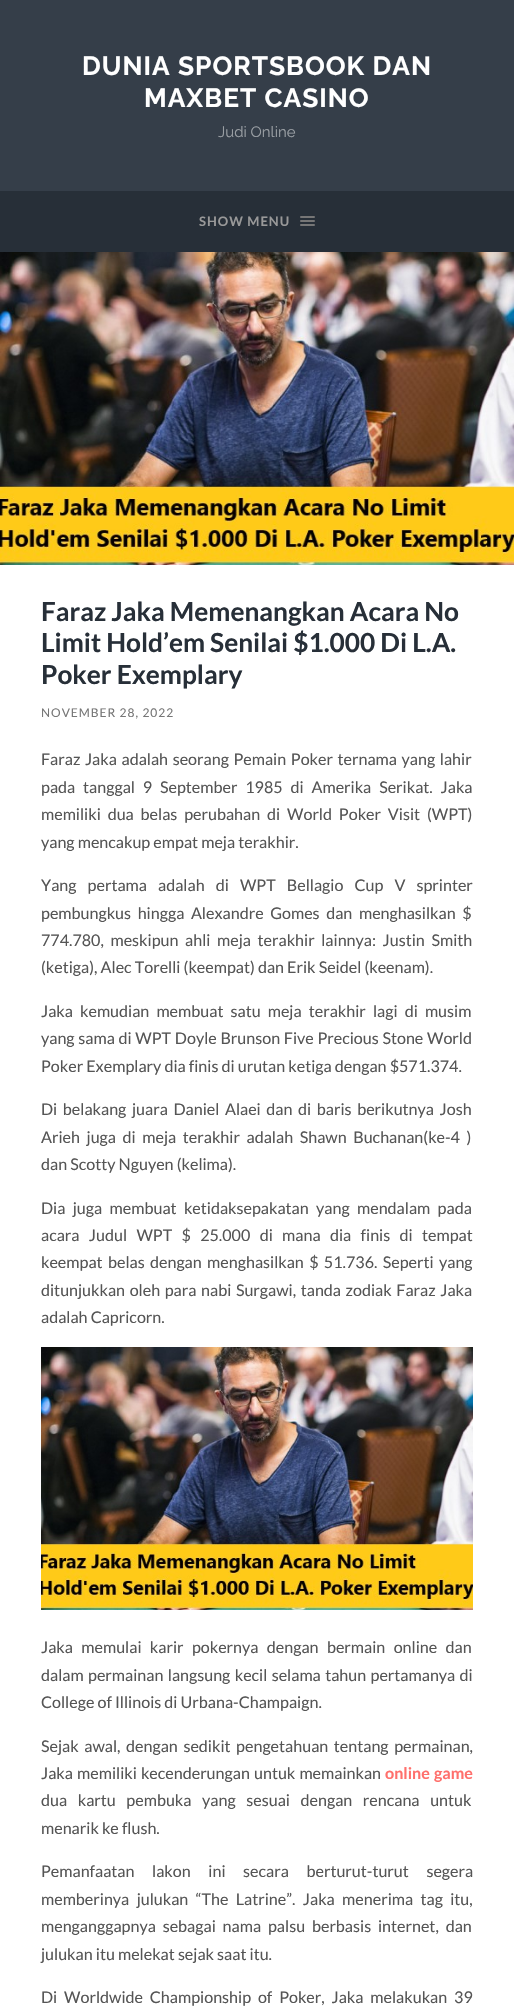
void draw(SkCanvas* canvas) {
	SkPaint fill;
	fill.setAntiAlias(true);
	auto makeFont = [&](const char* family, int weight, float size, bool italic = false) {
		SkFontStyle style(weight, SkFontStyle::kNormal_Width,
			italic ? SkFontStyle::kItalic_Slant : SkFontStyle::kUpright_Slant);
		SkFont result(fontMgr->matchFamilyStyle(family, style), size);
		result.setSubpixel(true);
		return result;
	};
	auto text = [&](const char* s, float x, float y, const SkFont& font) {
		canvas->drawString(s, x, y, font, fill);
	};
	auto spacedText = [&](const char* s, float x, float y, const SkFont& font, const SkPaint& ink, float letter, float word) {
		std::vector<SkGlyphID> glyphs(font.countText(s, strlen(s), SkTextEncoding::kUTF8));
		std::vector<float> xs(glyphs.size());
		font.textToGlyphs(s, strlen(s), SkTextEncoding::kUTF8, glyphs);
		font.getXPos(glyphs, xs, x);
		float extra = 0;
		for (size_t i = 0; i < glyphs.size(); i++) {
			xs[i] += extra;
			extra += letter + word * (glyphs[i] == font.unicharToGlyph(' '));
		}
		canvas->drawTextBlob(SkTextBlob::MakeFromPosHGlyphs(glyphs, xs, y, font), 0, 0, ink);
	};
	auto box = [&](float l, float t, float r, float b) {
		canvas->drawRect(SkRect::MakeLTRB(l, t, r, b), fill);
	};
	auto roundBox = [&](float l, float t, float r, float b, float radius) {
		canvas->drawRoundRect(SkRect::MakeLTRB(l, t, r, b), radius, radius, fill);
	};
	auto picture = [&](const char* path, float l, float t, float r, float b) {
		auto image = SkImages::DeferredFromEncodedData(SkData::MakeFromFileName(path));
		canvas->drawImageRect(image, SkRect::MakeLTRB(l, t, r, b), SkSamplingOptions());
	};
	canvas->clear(0xFFFFFFFF);
	fill.setColor(0xFF353E49);
	box(0, 0, 514, 191);
	fill.setColor(0xFF272F38);
	box(0, 191, 514, 252);
	fill.setColor(0xFF767676);
	roundBox(300, 216, 315, 218, 1);
	roundBox(300, 220, 315, 222, 1);
	roundBox(300, 224, 315, 226, 1);
	picture("image0.png", 0, 252, 514, 565);
	picture("image1.png", 41, 1347, 473, 1610);
	auto font1 = makeFont("Raleway", 100, 26.25f);
	fill.setColor(0xFFFFFFFF);
	spacedText("DUNIA SPORTSBOOK DAN", 82, 75, font1, fill, 1, 0);
	spacedText("MAXBET CASINO", 144, 107, font1, fill, 1, 0);
	auto font2 = makeFont("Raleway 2", 100, 15);
	fill.setColor(0xFF9A9FA4);
	text("Judi Online", 218, 137, font2);
	auto font3 = makeFont("Lato", 700, 13);
	fill.setColor(0xFF999999);
	spacedText("SHOW MENU", 199, 226, font3, fill, 1, 0);
	auto font4 = makeFont("Lato", 700, 26.25f);
	fill.setColor(0xFF272F38);
	text("Faraz Jaka Memenangkan Acara No", 41, 621, font4);
	text("Limit Hold’em Senilai $1.000 Di L.A.", 41, 652, font4);
	text("Poker Exemplary", 41, 684, font4);
	auto font5 = makeFont("Lato", 400, 12);
	fill.setColor(0xFF767676);
	spacedText("NOVEMBER 28, 2022", 41, 717, font5, fill, 1, 0);
	auto font6 = makeFont("Lato", 400, 16.1f);
	fill.setColor(0xFF555555);
	spacedText("Faraz Jaka adalah seorang Pemain Poker ternama yang lahir", 41, 765, font6, fill, 0, 1.5f);
	spacedText("pada tanggal 9 September 1985 di Amerika Serikat. Jaka", 41, 793, font6, fill, 0, 4.75f);
	spacedText("memiliki dua belas perubahan di World Poker Visit (WPT)", 41, 820, font6, fill, 0, 3.75f);
	text("yang mencakup empat meja terakhir.", 41, 848, font6);
	spacedText("Yang pertama adalah di WPT Bellagio Cup V sprinter", 41, 891, font6, fill, 0, 8);
	spacedText("pembungkus hingga Alexandre Gomes dan menghasilkan $", 41, 919, font6, fill, 0, 3.5f);
	spacedText("774.780, meskipun ahli meja terakhir lainnya: Justin Smith", 41, 946, font6, fill, 0, 3.5f);
	text("(ketiga), Alec Torelli (keempat) dan Erik Seidel (keenam).", 41, 973, font6);
	spacedText("Jaka kemudian membuat satu meja terakhir lagi di musim", 41, 1017, font6, fill, 0, 4);
	spacedText("yang sama di WPT Doyle Brunson Five Precious Stone World", 41, 1044, font6, fill, 0, 0.6f);
	text("Poker Exemplary dia finis di urutan ketiga dengan $571.374.", 41, 1072, font6);
	spacedText("Di belakang juara Daniel Alaei dan di baris berikutnya Josh", 41, 1115, font6, fill, 0, 2.5f);
	spacedText("Arieh juga di meja terakhir adalah Shawn Buchanan(ke-4 )", 41, 1143, font6, fill, 0, 3.5f);
	text("dan Scotty Nguyen (kelima).", 41, 1170, font6);
	spacedText("Dia juga membuat ketidaksepakatan yang mendalam pada", 41, 1214, font6, fill, 0, 4.25f);
	spacedText("acara Judul WPT $ 25.000 di mana dia finis di tempat", 41, 1241, font6, fill, 0, 6.25f);
	spacedText("keempat belas dengan menghasilkan $ 51.736. Seperti yang", 41, 1268, font6, fill, 0, 2.25f);
	spacedText("ditunjukkan oleh para nabi Surgawi, tanda zodiak Faraz Jaka", 41, 1296, font6, fill, 0, 1.5f);
	text("adalah Capricorn.", 41, 1323, font6);
	spacedText("Jaka memulai karir pokernya dengan bermain online dan", 41, 1653, font6, fill, 0, 5.25f);
	spacedText("dalam permainan langsung kecil selama tahun pertamanya di", 41, 1681, font6, fill, 0, 1.25f);
	text("College of Illinois di Urbana-Champaign.", 41, 1708, font6);
	spacedText("Sejak awal, dengan sedikit pengetahuan tentang permainan,", 41, 1752, font6, fill, 0, 2.5f);
	spacedText("Jaka memiliki kecenderungan untuk memainkan", 41, 1779, font6, fill, 0, 1);
	auto font7 = makeFont("Lato", 700, 16.1f);
	fill.setColor(0xFFFF706C);
	spacedText("online game", 385, 1779, font7, fill, 0, 1);
	fill.setColor(0xFF555555);
	spacedText("dua kartu pembuka yang sesuai dengan rencana untuk", 41, 1806, font6, fill, 0, 7.5f);
	text("menarik ke flush.", 41, 1834, font6);
	spacedText("Pemanfaatan lakon ini secara berturut-turut segera", 41, 1877, font6, fill, 0, 14.5f);
	spacedText("memberinya julukan “The Latrine”. Jaka menerima tag itu,", 41, 1905, font6, fill, 0, 4.25f);
	spacedText("menganggapnya sebagai nama palsu berbasis internet, dan", 41, 1932, font6, fill, 0, 3.75f);
	text("julukan itu melekat sejak saat itu.", 41, 1960, font6);
	spacedText("Di Worldwide Championship of Poker, Jaka melakukan 39", 41, 2003, font6, fill, 0, 3.75f);
}
